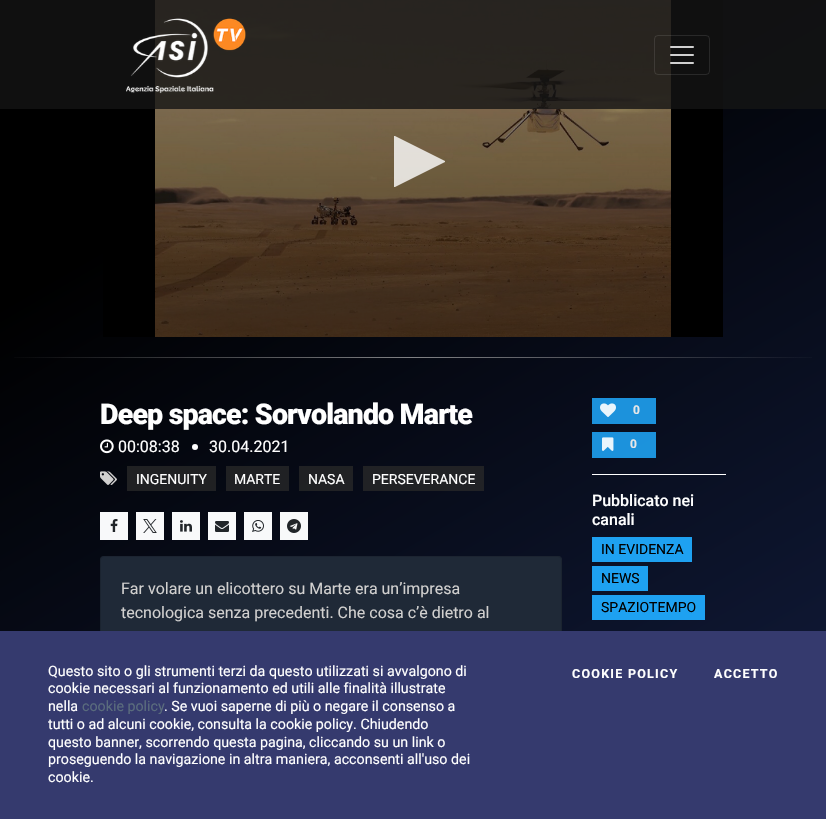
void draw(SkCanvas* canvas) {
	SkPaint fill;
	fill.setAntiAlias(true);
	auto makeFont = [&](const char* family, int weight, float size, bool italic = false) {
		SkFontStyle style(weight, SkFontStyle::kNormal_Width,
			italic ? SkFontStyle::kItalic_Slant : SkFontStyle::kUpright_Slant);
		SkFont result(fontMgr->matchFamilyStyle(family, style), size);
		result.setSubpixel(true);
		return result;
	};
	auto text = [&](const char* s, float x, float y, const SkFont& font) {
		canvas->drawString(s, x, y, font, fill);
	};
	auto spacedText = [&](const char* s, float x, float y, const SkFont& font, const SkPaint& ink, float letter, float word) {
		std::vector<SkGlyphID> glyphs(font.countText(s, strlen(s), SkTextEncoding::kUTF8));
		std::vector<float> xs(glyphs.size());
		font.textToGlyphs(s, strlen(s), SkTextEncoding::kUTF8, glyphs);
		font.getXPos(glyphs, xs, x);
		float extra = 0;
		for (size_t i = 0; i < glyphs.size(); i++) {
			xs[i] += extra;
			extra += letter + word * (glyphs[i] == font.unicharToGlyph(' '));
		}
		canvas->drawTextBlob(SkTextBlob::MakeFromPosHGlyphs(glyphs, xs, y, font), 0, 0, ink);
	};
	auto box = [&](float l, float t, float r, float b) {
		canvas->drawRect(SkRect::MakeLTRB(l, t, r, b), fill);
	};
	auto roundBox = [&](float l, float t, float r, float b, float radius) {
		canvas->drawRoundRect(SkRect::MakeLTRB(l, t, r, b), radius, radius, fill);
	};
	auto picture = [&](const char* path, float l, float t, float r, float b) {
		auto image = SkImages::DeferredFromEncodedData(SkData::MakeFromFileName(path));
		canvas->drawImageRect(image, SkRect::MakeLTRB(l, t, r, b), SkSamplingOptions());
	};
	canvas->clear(0xFFFFFFFF);
	{
		const SkColor colors[] = {0xFF000000, 0xFF1E3069};
		const float stops[] = {0.2f, 1};
		const SkPoint ends[] = {{-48, -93}, {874, 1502}};
		fill.setShader(SkGradientShader::MakeLinear(ends, colors, stops, 2, SkTileMode::kClamp));
		fill.setAlpha(255);
	}
	box(0, 0, 826, 631);
	{
		const SkColor colors[] = {0xFF1B91D9, 0xFF1E96E3};
		const float stops[] = {0.2f, 1};
		const SkPoint ends[] = {{-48, -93}, {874, 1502}};
		fill.setShader(SkGradientShader::MakeLinear(ends, colors, stops, 2, SkTileMode::kClamp));
		fill.setAlpha(255);
	}
	box(592, 432, 656, 458);
	box(592, 398, 656, 424);
	{
		const SkColor colors[] = {0xFF1F1F1F, 0xFF262B38};
		const float stops[] = {0.2f, 1};
		const SkPoint ends[] = {{-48, -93}, {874, 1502}};
		fill.setShader(SkGradientShader::MakeLinear(ends, colors, stops, 2, SkTileMode::kClamp));
		fill.setAlpha(255);
	}
	box(363, 466, 484, 491);
	box(299, 466, 353, 491);
	box(226, 466, 289, 491);
	box(127, 466, 216, 491);
	fill.setShader(nullptr);
	fill.setColor(0xFF000000);
	box(103, 0, 723, 337);
	picture("image3.png", 155, 0, 671, 337);
	{
		const SkColor colors[] = {0x00000000, 0x66000000, 0x66000000};
		const float stops[] = {0, 0.77f, 1};
		const SkPoint ends[] = {{413, 97}, {413, 337}};
		fill.setShader(SkGradientShader::MakeLinear(ends, colors, stops, 3, SkTileMode::kClamp));
		fill.setAlpha(255);
	}
	box(155, 107, 671, 337);
	fill.setShader(nullptr);
	fill.setColor(0xCC141414);
	box(0, 0, 826, 109);
	picture("image0.png", 125, 18, 246, 94);
	fill.setStyle(SkPaint::kStroke_Style);
	fill.setStrokeWidth(1);
	fill.setColor(0x1AFFFFFF);
	canvas->drawRoundRect(SkRect::MakeLTRB(654.5f, 35.5f, 709.5f, 74.5f), 3.5f, 3.5f, fill);
	picture("image1.png", 670, 46, 694, 64);
	picture("image2.png", 14, 357, 812, 358);
	fill.setStyle(SkPaint::kFill_Style);
	fill.setColor(0xCCFFFFFF);
	canvas->drawPath(SkPathBuilder().moveTo(395, 187).lineTo(394, 187).lineTo(394, 136).lineTo(395, 136).lineTo(445, 161).cubicTo(445, 161, 445, 162, 445, 162).close().detach(), fill);
	picture("image4.png", 100, 439, 114, 454);
	fill.setColor(0xFFFFFFFF);
	canvas->drawCircle(195, 447, 3, fill);
	picture("image5.png", 100, 471, 117, 485);
	fill.setColor(0xFFF8F9FA);
	box(100, 512, 128, 540);
	picture("image6.png", 110, 519, 118, 532);
	box(136, 512, 164, 540);
	picture("image7.png", 143, 519, 157, 533);
	box(172, 512, 200, 540);
	picture("image8.png", 180, 520, 192, 532);
	box(208, 512, 236, 540);
	picture("image9.png", 215, 521, 229, 532);
	box(244, 512, 272, 540);
	picture("image10.png", 252, 520, 264, 532);
	box(280, 512, 308, 540);
	picture("image11.png", 287, 519, 301, 533);
	fill.setColor(0xFF1F2937);
	roundBox(100, 556, 562, 718, 4);
	fill.setStyle(SkPaint::kStroke_Style);
	fill.setColor(0x1F000000);
	canvas->drawRoundRect(SkRect::MakeLTRB(100.5f, 556.5f, 561.5f, 717.5f), 3.5f, 3.5f, fill);
	fill.setStyle(SkPaint::kFill_Style);
	fill.setColor(0xFFFFFFFF);
	box(592, 474, 726, 475);
	picture("image12.png", 600, 403, 616, 417);
	picture("image13.png", 602, 437, 614, 451);
	fill.setColor(0xFF1EA1F1);
	box(592, 537, 692, 562);
	box(592, 566, 648, 591);
	box(592, 595, 705, 620);
	fill.setColor(0xFF353A6E);
	box(0, 631, 826, 819);
	auto font1 = makeFont("Roboto", 900, 28.6f);
	fill.setColor(0xFFFFFFFF);
	spacedText("Deep space: Sorvolando Marte", 100, 424, font1, fill, -0.85f, 0);
	auto font2 = makeFont("Roboto", 400, 16);
	text("00:08:38", 118, 452, font2);
	text("30.04.2021", 209, 452, font2);
	auto font3 = makeFont("Roboto", 400, 14);
	text("INGENUITY", 136, 484, font3);
	text("MARTE", 234, 484, font3);
	text("NASA", 308, 484, font3);
	text("PERSEVERANCE", 372, 484, font3);
	fill.setColor(0xFFD1D0CF);
	text("Far volare un elicottero su Marte era un’impresa", 121, 594, font2);
	text("tecnologica senza precedenti. Che cosa c’è dietro al", 121, 618, font2);
	auto font4 = makeFont("Roboto", 700, 12);
	fill.setColor(0xFFE6E7E8);
	text("0", 633, 414, font4);
	text("0", 630, 448, font4);
	auto font5 = makeFont("Roboto", 500, 16);
	fill.setColor(0xFFFFFFFF);
	text("Pubblicato nei", 592, 506, font5);
	text("canali", 592, 525, font5);
	fill.setColor(0xFF000000);
	text("IN EVIDENZA", 601, 554, font3);
	text("NEWS", 601, 583, font3);
	text("SPAZIOTEMPO", 601, 612, font3);
	auto font6 = makeFont("Roboto", 400, 14.25f);
	fill.setColor(0xFFFFFFFF);
	text("Questo sito o gli strumenti terzi da questo utilizzati si avvalgono di", 48, 676, font6);
	text("cookie necessari al funzionamento ed utili alle finalità illustrate", 48, 693, font6);
	text("nella", 48, 711, font6);
	fill.setColor(0xFF5A6C7D);
	text("cookie policy", 82, 711, font6);
	fill.setColor(0xFFFFFFFF);
	text(". Se vuoi saperne di più o negare il consenso a", 164, 711, font6);
	text("tutti o ad alcuni cookie, consulta la cookie policy. Chiudendo", 48, 729, font6);
	text("questo banner, scorrendo questa pagina, cliccando su un link o", 48, 747, font6);
	text("proseguendo la navigazione in altra maniera, acconsenti all'uso dei", 48, 764, font6);
	text("cookie.", 48, 782, font6);
	auto font7 = makeFont("Roboto", 700, 12.5f);
	spacedText("COOKIE POLICY", 572, 678, font7, fill, 1.25f, 0);
	spacedText("ACCETTO", 714, 678, font7, fill, 1.25f, 0);
}
